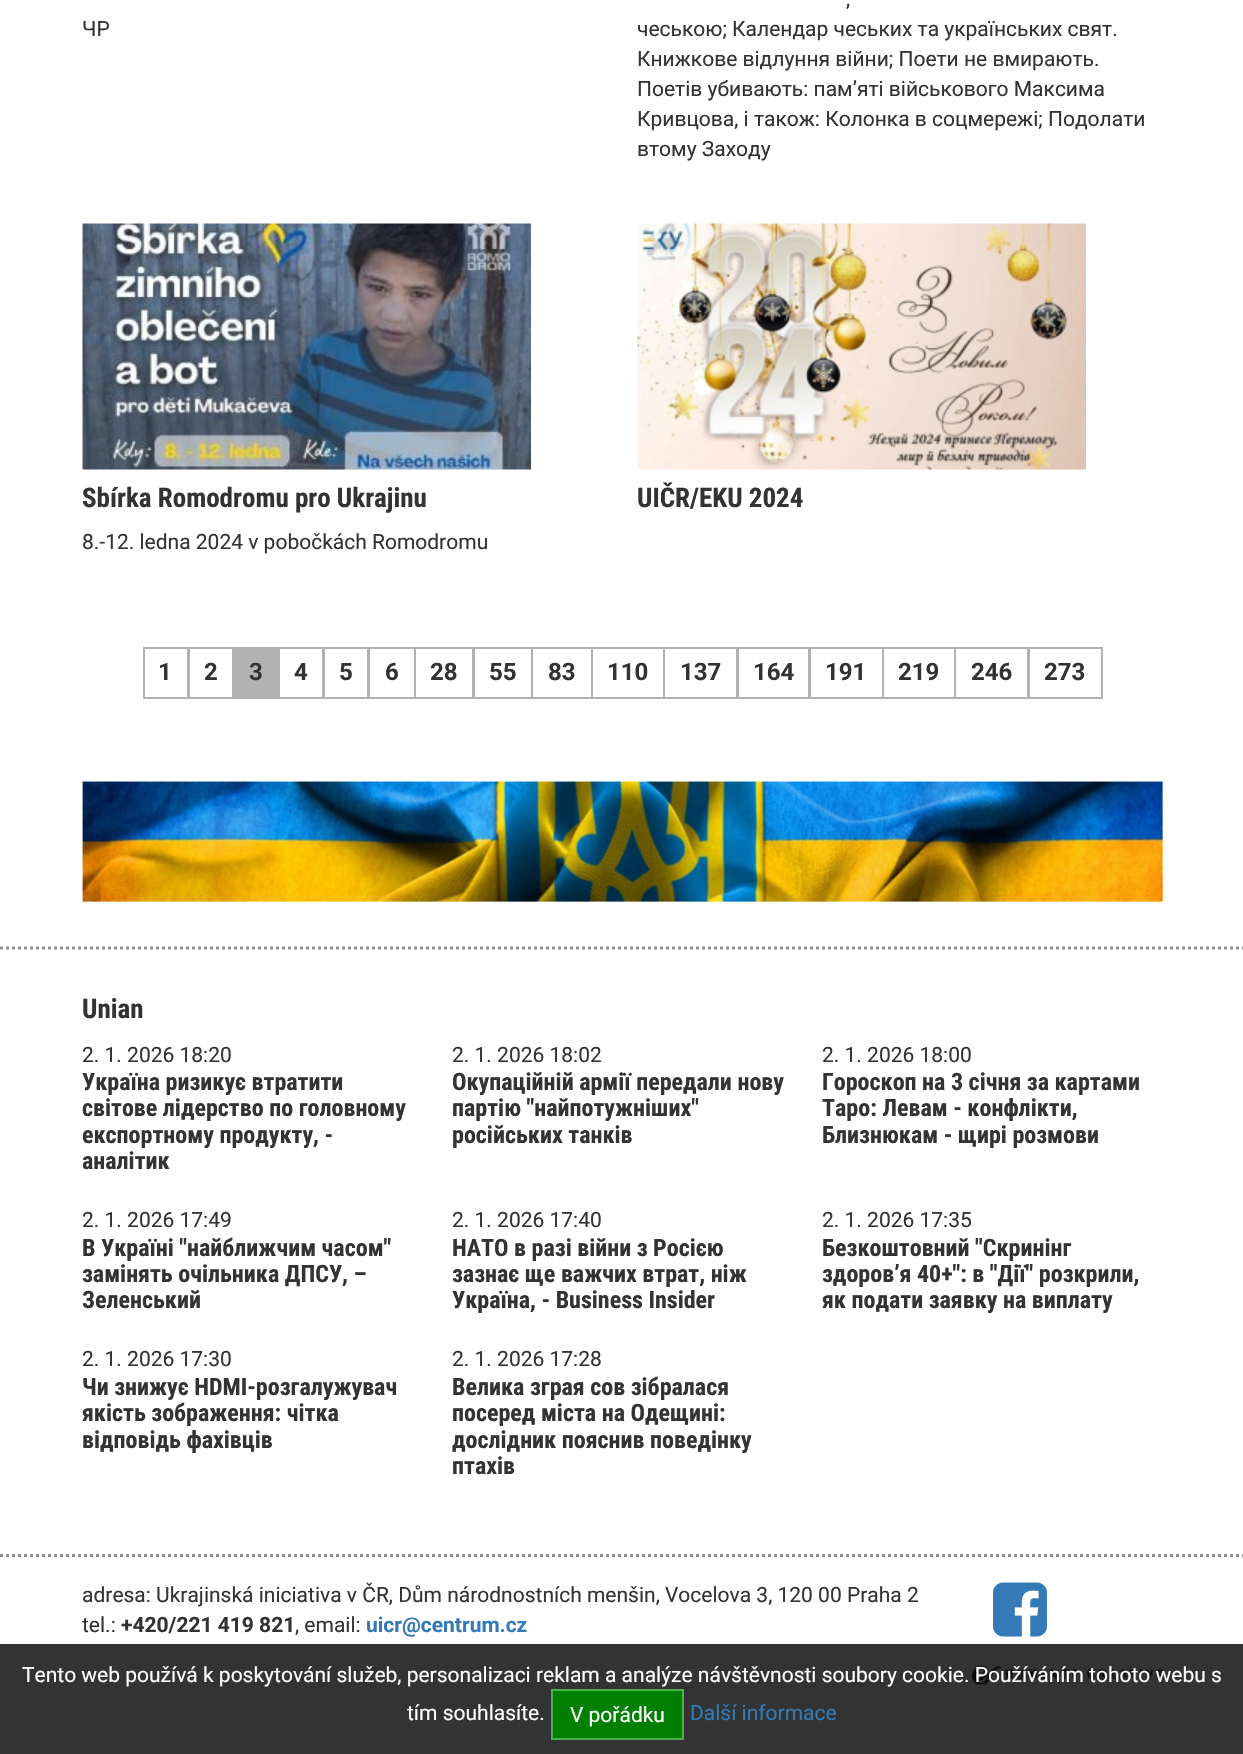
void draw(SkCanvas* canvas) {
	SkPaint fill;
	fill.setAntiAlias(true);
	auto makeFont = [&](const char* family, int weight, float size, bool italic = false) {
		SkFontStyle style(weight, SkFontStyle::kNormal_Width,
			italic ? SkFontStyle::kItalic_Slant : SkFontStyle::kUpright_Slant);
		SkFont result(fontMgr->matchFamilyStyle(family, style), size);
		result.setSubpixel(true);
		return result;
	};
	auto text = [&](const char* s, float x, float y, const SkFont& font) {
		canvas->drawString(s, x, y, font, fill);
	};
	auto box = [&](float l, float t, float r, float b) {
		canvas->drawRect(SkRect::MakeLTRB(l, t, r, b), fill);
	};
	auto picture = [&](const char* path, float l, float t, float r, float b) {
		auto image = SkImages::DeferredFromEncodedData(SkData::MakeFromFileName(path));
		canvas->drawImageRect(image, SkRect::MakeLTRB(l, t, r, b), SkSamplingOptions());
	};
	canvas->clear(0xFFFFFFFF);
	fill.setColor(0xFF333333);
	box(0, 1644, 1243, 1754);
	picture("image0.png", 82, 223, 531, 470);
	picture("image1.png", 637, 223, 1086, 470);
	fill.setStyle(SkPaint::kStroke_Style);
	fill.setStrokeWidth(2);
	fill.setColor(0xFFB2B2B2);
	canvas->drawRect(SkRect::MakeLTRB(144, 648, 188, 698), fill);
	canvas->drawRect(SkRect::MakeLTRB(189, 648, 233, 698), fill);
	fill.setStyle(SkPaint::kFill_Style);
	box(234, 647, 278, 699);
	fill.setStyle(SkPaint::kStroke_Style);
	canvas->drawRect(SkRect::MakeLTRB(279, 648, 323, 698), fill);
	canvas->drawRect(SkRect::MakeLTRB(324, 648, 368, 698), fill);
	canvas->drawRect(SkRect::MakeLTRB(369, 648, 415, 698), fill);
	canvas->drawRect(SkRect::MakeLTRB(415, 648, 473, 698), fill);
	canvas->drawRect(SkRect::MakeLTRB(474, 648, 532, 698), fill);
	canvas->drawRect(SkRect::MakeLTRB(532, 648, 592, 698), fill);
	canvas->drawRect(SkRect::MakeLTRB(592, 648, 664, 698), fill);
	canvas->drawRect(SkRect::MakeLTRB(664, 648, 737, 698), fill);
	canvas->drawRect(SkRect::MakeLTRB(738, 648, 809, 698), fill);
	canvas->drawRect(SkRect::MakeLTRB(810, 648, 883, 698), fill);
	canvas->drawRect(SkRect::MakeLTRB(883, 648, 955, 698), fill);
	canvas->drawRect(SkRect::MakeLTRB(955, 648, 1028, 698), fill);
	canvas->drawRect(SkRect::MakeLTRB(1029, 648, 1102, 698), fill);
	picture("image2.png", 82, 781, 1163, 902);
	fill.setStrokeWidth(3);
	fill.setColor(0xFF8F8F8F);
	fill.setPathEffect(SkDashPathEffect::Make({{3, 3}}, 0));
	canvas->drawPath(SkPathBuilder().moveTo(0, 948).lineTo(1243.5f, 948).detach(), fill);
	fill.setPathEffect(nullptr);
	fill.setPathEffect(SkDashPathEffect::Make({{3, 3}}, 0));
	canvas->drawPath(SkPathBuilder().moveTo(0, 1555.5f).lineTo(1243.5f, 1555.5f).detach(), fill);
	fill.setPathEffect(nullptr);
	picture("image3.png", 993, 1582, 1047, 1637);
	picture("image4.png", 972, 1665, 1163, 1685);
	fill.setStyle(SkPaint::kFill_Style);
	fill.setColor(0xFF008000);
	canvas->drawRect(SkRect::MakeLTRB(552, 1690, 683, 1739), fill);
	fill.setStyle(SkPaint::kStroke_Style);
	fill.setStrokeWidth(2);
	fill.setColor(0xFF4CAE4C);
	canvas->drawRect(SkRect::MakeLTRB(552, 1690, 683, 1739), fill);
	auto font1 = makeFont("Roboto", 400, 21);
	fill.setStyle(SkPaint::kFill_Style);
	fill.setColor(0xFF333333);
	text("ЧР", 82, 36, font1);
	text(",", 846, 6, font1);
	text("чеською; Календар чеських та українських свят.", 637, 36, font1);
	text("Книжкове відлуння війни; Поети не вмирають.", 637, 66, font1);
	text("Поетів убивають: памʼяті військового Максима", 637, 96, font1);
	text("Кривцова, і також: Колонка в соцмережі; Подолати", 637, 126, font1);
	text("втому Заходу", 637, 156, font1);
	auto font2 = makeFont("Roboto Condensed", 700, 27);
	text("Sbírka Romodromu pro Ukrajinu", 82, 507, font2);
	text("8.-12. ledna 2024 v pobočkách Romodromu", 82, 549, font1);
	text("UIČR/EKU 2024", 637, 507, font2);
	auto font3 = makeFont("Roboto", 700, 24);
	text("1", 158, 680, font3);
	text("2", 204, 680, font3);
	text("3", 249, 680, font3);
	text("4", 294, 680, font3);
	text("5", 339, 680, font3);
	text("6", 385, 680, font3);
	text("28", 430, 680, font3);
	text("55", 489, 680, font3);
	text("83", 548, 680, font3);
	text("110", 607, 680, font3);
	text("137", 680, 680, font3);
	text("164", 753, 680, font3);
	text("191", 825, 680, font3);
	text("219", 898, 680, font3);
	text("246", 971, 680, font3);
	text("273", 1044, 680, font3);
	text("Unian", 82, 1018, font2);
	text("2. 1. 2026 18:20", 82, 1062, font1);
	auto font4 = makeFont("Roboto Condensed", 700, 24);
	text("Україна ризикує втратити", 82, 1090, font4);
	text("світове лідерство по головному", 82, 1116, font4);
	text("експортному продукту, -", 82, 1143, font4);
	text("аналітик", 82, 1169, font4);
	text("2. 1. 2026 18:02", 452, 1062, font1);
	text("Окупаційній армії передали нову", 452, 1090, font4);
	text("партію \"найпотужніших\"", 452, 1116, font4);
	text("російських танків", 452, 1143, font4);
	text("2. 1. 2026 18:00", 822, 1062, font1);
	text("Гороскоп на 3 січня за картами", 822, 1090, font4);
	text("Таро: Левам - конфлікти,", 822, 1116, font4);
	text("Близнюкам - щирі розмови", 822, 1143, font4);
	text("2. 1. 2026 17:49", 82, 1227, font1);
	text("В Україні \"найближчим часом\"", 82, 1256, font4);
	text("замінять очільника ДПСУ, –", 82, 1282, font4);
	text("Зеленський", 82, 1308, font4);
	text("2. 1. 2026 17:40", 452, 1227, font1);
	text("НАТО в разі війни з Росією", 452, 1256, font4);
	text("зазнає ще важчих втрат, ніж", 452, 1282, font4);
	text("Україна, - Business Insider", 452, 1308, font4);
	text("2. 1. 2026 17:35", 822, 1227, font1);
	text("Безкоштовний \"Скринінг", 822, 1256, font4);
	text("здоровʼя 40+\": в \"Дії\" розкрили,", 822, 1282, font4);
	text("як подати заявку на виплату", 822, 1308, font4);
	text("2. 1. 2026 17:30", 82, 1366, font1);
	text("Чи знижує HDMI-розгалужувач", 82, 1395, font4);
	text("якість зображення: чітка", 82, 1421, font4);
	text("відповідь фахівців", 82, 1448, font4);
	text("2. 1. 2026 17:28", 452, 1366, font1);
	text("Велика зграя сов зібралася", 452, 1395, font4);
	text("посеред міста на Одещині:", 452, 1421, font4);
	text("дослідник пояснив поведінку", 452, 1448, font4);
	text("птахів", 452, 1474, font4);
	text("adresa: Ukrajinská iniciativa v ČR, Dům národnostních menšin, Vocelova 3, 120 00 Praha 2", 82, 1602, font1);
	text("tel.:", 82, 1632, font1);
	auto font5 = makeFont("Roboto", 700, 21);
	text("+420/221 419 821", 121, 1632, font5);
	text(", email:", 295, 1632, font1);
	fill.setColor(0xFF337AB7);
	text("uicr@centrum.cz", 366, 1632, font5);
	fill.setColor(0xFFFFFFFF);
	text("Tento web používá k poskytování služeb, personalizaci reklam a analýze návštěvnosti soubory cookie. Používáním tohoto webu s", 22, 1682, font1);
	text("tím souhlasíte.", 407, 1720, font1);
	text("V pořádku", 570, 1722, font1);
	fill.setColor(0xFF337AB7);
	text("Další informace", 690, 1720, font1);
}
